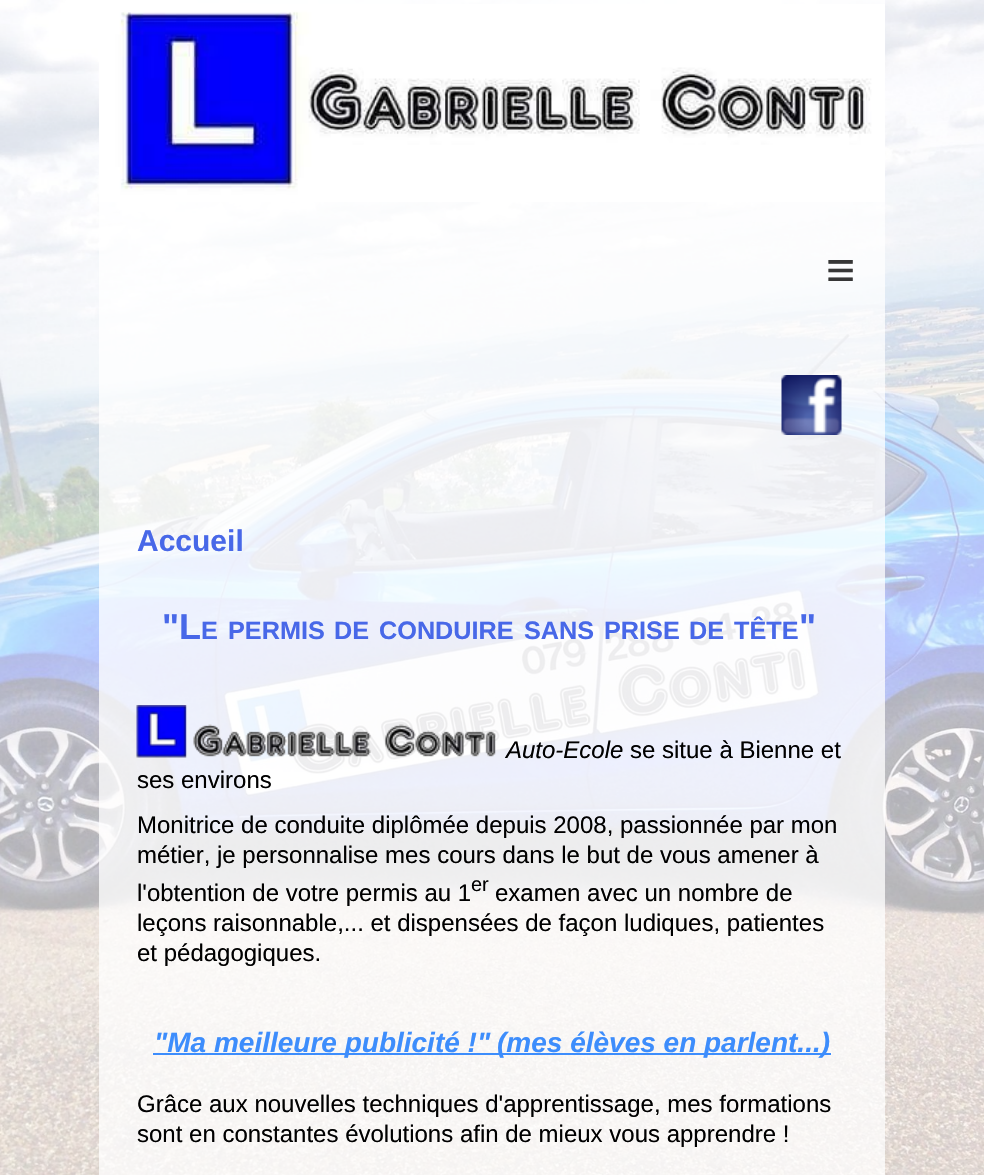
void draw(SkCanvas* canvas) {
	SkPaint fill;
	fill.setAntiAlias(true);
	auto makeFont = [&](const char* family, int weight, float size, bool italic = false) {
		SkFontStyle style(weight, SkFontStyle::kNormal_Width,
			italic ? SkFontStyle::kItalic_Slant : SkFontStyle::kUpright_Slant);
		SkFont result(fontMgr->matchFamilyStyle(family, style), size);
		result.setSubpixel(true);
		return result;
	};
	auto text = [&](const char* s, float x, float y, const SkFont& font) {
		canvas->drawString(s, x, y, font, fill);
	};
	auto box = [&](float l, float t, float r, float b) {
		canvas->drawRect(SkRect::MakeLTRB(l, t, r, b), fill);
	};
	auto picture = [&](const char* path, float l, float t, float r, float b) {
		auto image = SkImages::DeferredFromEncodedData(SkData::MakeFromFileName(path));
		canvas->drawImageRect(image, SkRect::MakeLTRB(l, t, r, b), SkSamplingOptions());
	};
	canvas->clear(0xFFFFFFFF);
	picture("image0.png", 0, 0, 984, 1175);
	fill.setColor(0xBFFFFFFF);
	box(99, 0, 885, 1175);
	picture("image1.png", 99, 4, 885, 202);
	picture("image2.png", 781, 375, 842, 435);
	picture("image3.png", 136, 705, 496, 758);
	fill.setColor(0xFF3D8DFC);
	box(153, 1053, 489, 1055);
	box(489, 1053, 831, 1055);
	auto font1 = makeFont("Liberation Sans", 400, 50);
	fill.setColor(0xFF363636);
	text("≡", 826, 287, font1);
	auto font2 = makeFont("Liberation Sans", 700, 30);
	fill.setColor(0xFF4868E8);
	text("Accueil", 137, 551, font2);
	auto font3 = makeFont("Liberation Sans", 700, 36);
	text("\"L", 162, 639, font3);
	auto font4 = makeFont("Liberation Sans", 700, 25.25f);
	text("E", 201, 639, font4);
	text("PERMIS", 228, 639, font4);
	text("DE", 334, 639, font4);
	text("CONDUIRE", 379, 639, font4);
	text("SANS", 524, 639, font4);
	text("PRISE", 604, 639, font4);
	text("DE", 689, 639, font4);
	text("TÊTE", 734, 639, font4);
	text("\"", 799, 639, font3);
	auto font5 = makeFont("Liberation Sans", 400, 24, true);
	fill.setColor(0xFF000000);
	text("Auto-Ecole", 506, 758, font5);
	auto font6 = makeFont("Liberation Sans", 400, 24);
	text("se situe à Bienne et", 630, 758, font6);
	text("ses environs", 137, 788, font6);
	text("Monitrice de conduite diplômée depuis 2008, passionnée par mon", 137, 833, font6);
	text("métier, je personnalise mes cours dans le but de vous amener à", 137, 863, font6);
	text("l'obtention de votre permis au 1", 137, 901, font6);
	auto font7 = makeFont("Liberation Sans", 400, 20);
	text("er", 471, 891, font7);
	text("examen avec un nombre de", 495, 901, font6);
	text("leçons raisonnable,... et dispensées de façon ludiques, patientes", 137, 931, font6);
	text("et pédagogiques.", 137, 961, font6);
	auto font8 = makeFont("Liberation Sans", 700, 28, true);
	fill.setColor(0xFF3D8DFC);
	text("\"Ma meilleure publicité !\"", 154, 1052, font8);
	text("(mes élèves en parlent...)", 497, 1052, font8);
	fill.setColor(0xFF000000);
	text("Grâce aux nouvelles techniques d'apprentissage, mes formations", 137, 1112, font6);
	text("sont en constantes évolutions afin de mieux vous apprendre !", 137, 1142, font6);
}
